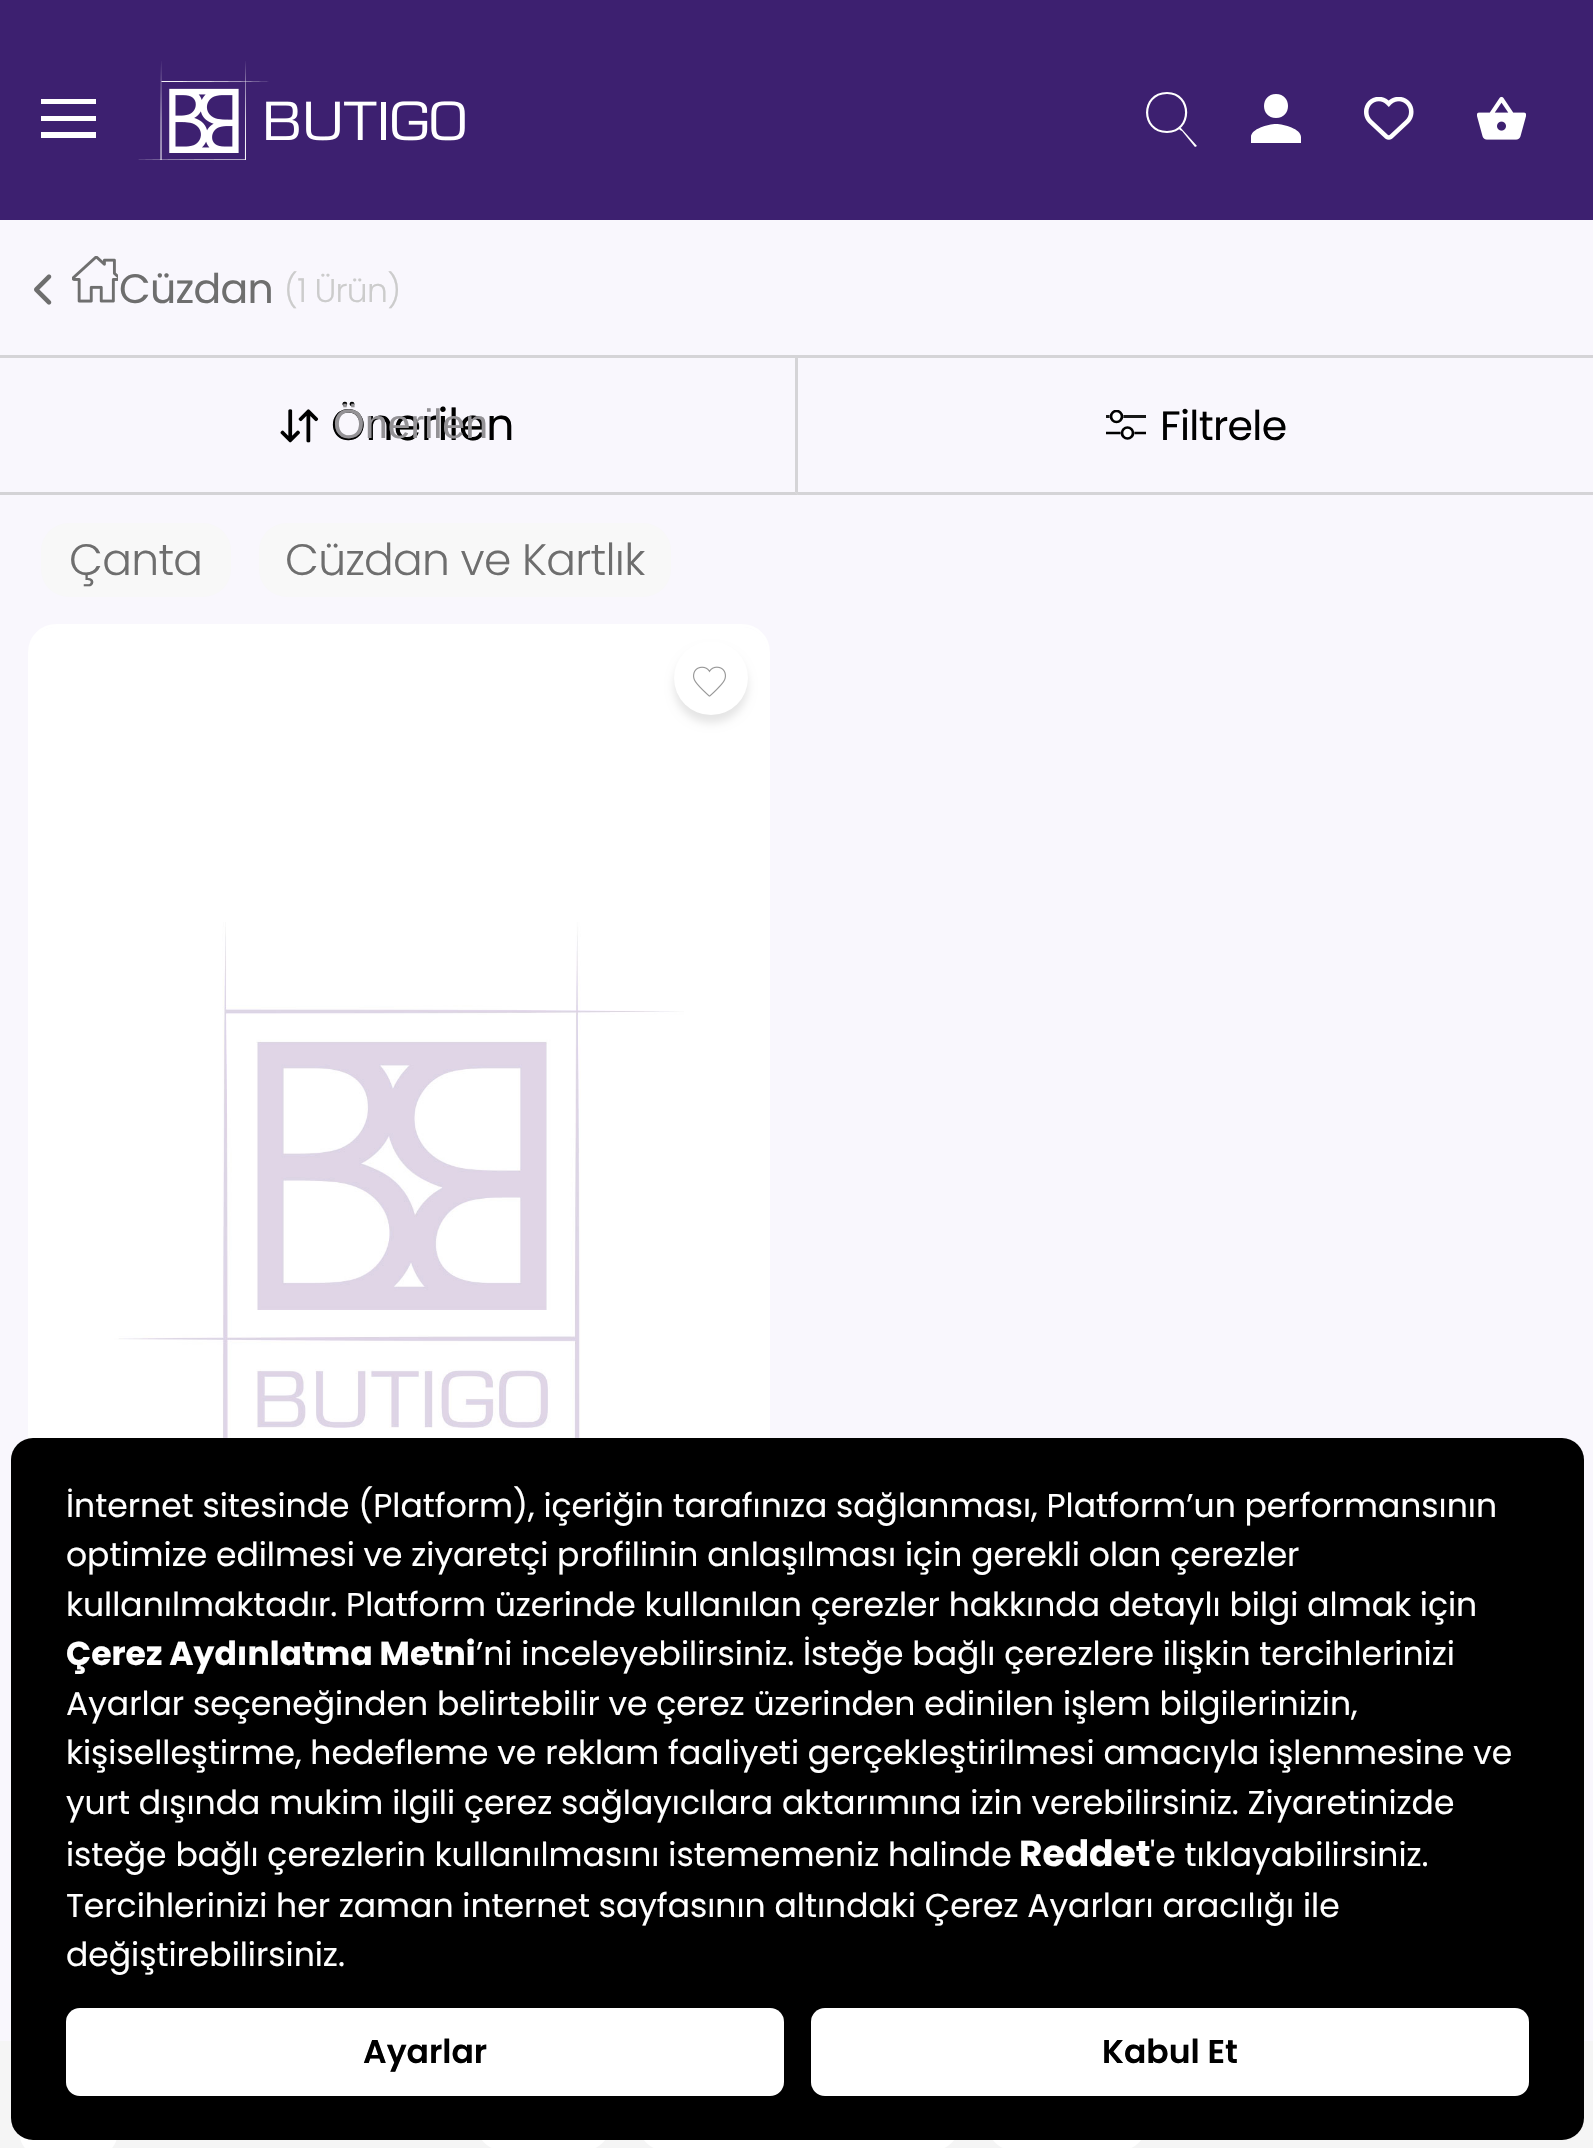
void draw(SkCanvas* canvas) {
	SkPaint fill;
	fill.setAntiAlias(true);
	auto makeFont = [&](const char* family, int weight, float size, bool italic = false) {
		SkFontStyle style(weight, SkFontStyle::kNormal_Width,
			italic ? SkFontStyle::kItalic_Slant : SkFontStyle::kUpright_Slant);
		SkFont result(fontMgr->matchFamilyStyle(family, style), size);
		result.setSubpixel(true);
		return result;
	};
	auto text = [&](const char* s, float x, float y, const SkFont& font) {
		canvas->drawString(s, x, y, font, fill);
	};
	auto spacedText = [&](const char* s, float x, float y, const SkFont& font, const SkPaint& ink, float letter, float word) {
		std::vector<SkGlyphID> glyphs(font.countText(s, strlen(s), SkTextEncoding::kUTF8));
		std::vector<float> xs(glyphs.size());
		font.textToGlyphs(s, strlen(s), SkTextEncoding::kUTF8, glyphs);
		font.getXPos(glyphs, xs, x);
		float extra = 0;
		for (size_t i = 0; i < glyphs.size(); i++) {
			xs[i] += extra;
			extra += letter + word * (glyphs[i] == font.unicharToGlyph(' '));
		}
		canvas->drawTextBlob(SkTextBlob::MakeFromPosHGlyphs(glyphs, xs, y, font), 0, 0, ink);
	};
	auto box = [&](float l, float t, float r, float b) {
		canvas->drawRect(SkRect::MakeLTRB(l, t, r, b), fill);
	};
	auto roundBox = [&](float l, float t, float r, float b, float radius) {
		canvas->drawRoundRect(SkRect::MakeLTRB(l, t, r, b), radius, radius, fill);
	};
	auto picture = [&](const char* path, float l, float t, float r, float b) {
		auto image = SkImages::DeferredFromEncodedData(SkData::MakeFromFileName(path));
		canvas->drawImageRect(image, SkRect::MakeLTRB(l, t, r, b), SkSamplingOptions());
	};
	canvas->clear(0xFFF9F7FD);
	fill.setColor(0xFF3D2070);
	box(0, 0, 1593, 220);
	fill.setColor(0xFFFFFFFF);
	canvas->drawPath(SkPathBuilder().moveTo(41, 99).lineTo(96, 99).lineTo(96, 104).lineTo(41, 104).close().moveTo(41, 116).lineTo(96, 116).lineTo(96, 121).lineTo(41, 121).close().moveTo(41, 132).lineTo(96, 132).lineTo(96, 138).lineTo(41, 138).close().detach(), fill);
	picture("image0.png", 138, 61, 465, 160);
	canvas->drawPath(SkPathBuilder().moveTo(1167, 133).cubicTo(1139, 133, 1139, 92, 1167, 92).cubicTo(1194, 92, 1194, 133, 1167, 133).close().moveTo(1167, 94).cubicTo(1142, 94, 1142, 131, 1167, 131).cubicTo(1191, 131, 1191, 94, 1167, 94).close().moveTo(1195, 147).lineTo(1182, 131).cubicTo(1181, 131, 1177, 128, 1180, 127).lineTo(1197, 146).close().detach(), fill);
	canvas->drawPath(SkPathBuilder().moveTo(1276, 118).cubicTo(1292, 118, 1292, 94, 1276, 94).cubicTo(1260, 94, 1260, 118, 1276, 118).close().moveTo(1276, 124).cubicTo(1268, 124, 1251, 129, 1251, 137).lineTo(1251, 143).lineTo(1301, 143).lineTo(1301, 137).cubicTo(1301, 129, 1284, 124, 1276, 124).close().detach(), fill);
	picture("image1.png", 1364, 97, 1414, 140);
	picture("image2.png", 1477, 96, 1526, 140);
	fill.setColor(0xFFD5D4D7);
	box(0, 355, 1593, 358);
	picture("image3.png", 34, 274, 52, 305);
	picture("image4.png", 72, 256, 118, 303);
	canvas->drawPath(SkPathBuilder().moveTo(798, 358).lineTo(798, 495).lineTo(795, 492).lineTo(795, 358).close().detach(), fill);
	fill.setColor(0x80B0B0B0);
	canvas->drawPath(SkPathBuilder().moveTo(798, 495).lineTo(0, 495).lineTo(0, 492).lineTo(795, 492).close().detach(), fill);
	picture("image5.png", 280, 409, 319, 443);
	fill.setColor(0xFFD5D4D7);
	box(798, 492, 1593, 495);
	fill.setColor(0xFF191919);
	box(1106, 415, 1146, 418);
	canvas->save();
	canvas->clipRect(SkRect::MakeLTRB(1106, 410, 1147, 440));
	fill.setStyle(SkPaint::kStroke_Style);
	fill.setStrokeWidth(2.7f);
	fill.setColor(0xFF000000);
	canvas->drawPath(SkPathBuilder().moveTo(1105.5f, 433).lineTo(1146, 433).detach(), fill);
	fill.setStyle(SkPaint::kFill_Style);
	fill.setColor(0xFFFFFFFF);
	canvas->drawCircle(1116.5f, 416.5f, 7, fill);
	fill.setStyle(SkPaint::kStroke_Style);
	fill.setColor(0xFF000000);
	canvas->drawCircle(1116.5f, 416.5f, 5.5f, fill);
	canvas->restore();
	fill.setStyle(SkPaint::kFill_Style);
	fill.setColor(0xFFFFFFFF);
	canvas->drawCircle(1127.5f, 433, 7, fill);
	fill.setStyle(SkPaint::kStroke_Style);
	fill.setColor(0xFF000000);
	canvas->drawCircle(1127.5f, 433, 5.5f, fill);
	fill.setStyle(SkPaint::kFill_Style);
	fill.setColor(0xFFF8F8F8);
	roundBox(41, 523, 231, 597, 28);
	roundBox(259, 523, 671, 597, 28);
	fill.setStyle(SkPaint::kStroke_Style);
	fill.setStrokeWidth(3);
	fill.setColor(0xFFFFFFFF);
	canvas->drawRoundRect(SkRect::MakeLTRB(29.5f, 625.5f, 768.5f, 1733.5f), 26.5f, 26.5f, fill);
	picture("image6.png", 31, 627, 767, 1439);
	fill.setStyle(SkPaint::kFill_Style);
	fill.setColor(0x1A000000);
	fill.setMaskFilter(SkMaskFilter::MakeBlur(kNormal_SkBlurStyle, 4));
	canvas->drawRoundRect(SkRect::MakeLTRB(674, 649, 748, 723), 37, 37, fill);
	fill.setMaskFilter(nullptr);
	fill.setColor(0xFFFFFFFF);
	canvas->drawCircle(711, 678, 37, fill);
	picture("image7.png", 693, 666, 726, 697);
	fill.setColor(0xFFF5F5F5);
	box(0, 2041, 1593, 2148);
	fill.setColor(0xFFFFFFFF);
	roundBox(19, 2060, 118, 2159, 28);
	roundBox(476, 2074, 611, 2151, 28);
	roundBox(638, 2074, 960, 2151, 28);
	roundBox(987, 2074, 1147, 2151, 28);
	fill.setColor(0xFF000000);
	roundBox(11, 1438, 1584, 2140, 22);
	fill.setColor(0xFFFFFFFF);
	roundBox(66, 2008, 784, 2096, 14);
	roundBox(811, 2008, 1529, 2096, 14);
	auto font1 = makeFont("Poppins", 400, 41);
	fill.setColor(0xFF6E6E6E);
	spacedText("Cüzdan", 119, 303, font1, fill, -0.7f, 0);
	auto font2 = makeFont("Poppins", 300, 33);
	fill.setColor(0xFFCCCCCC);
	spacedText("(1 Ürün)", 284, 302, font2, fill, -0.7f, 0);
	auto font3 = makeFont("Poppins", 400, 44);
	fill.setColor(0xFF000000);
	text("Önerilen", 331, 440, font3);
	auto font4 = makeFont("Liberation Sans", 400, 41);
	fill.setColor(0xFF949296);
	text("Önerilen", 333, 438, font4);
	fill.setColor(0xFF000000);
	spacedText("Filtrele", 1160, 440, font1, fill, -0.7f, 0);
	auto font5 = makeFont("Poppins", 300, 44);
	fill.setColor(0xFF6E6E6E);
	spacedText("Çanta", 69, 575, font5, fill, -0.7f, 0);
	spacedText("Cüzdan ve Kartlık", 285, 575, font5, fill, -0.7f, 0);
	auto font6 = makeFont("Poppins", 400, 33);
	fill.setColor(0xFFFFFFFF);
	text("İnternet sitesinde (Platform), içeriğin tarafınıza sağlanması, Platform’un performansının", 66, 1517, font6);
	text("optimize edilmesi ve ziyaretçi profilinin anlaşılması için gerekli olan çerezler", 66, 1566, font6);
	text("kullanılmaktadır. Platform üzerinde kullanılan çerezler hakkında detaylı bilgi almak için", 66, 1616, font6);
	auto font7 = makeFont("Poppins", 700, 33);
	text("Çerez Aydınlatma Metni", 66, 1665, font7);
	text("’ni inceleyebilirsiniz. İsteğe bağlı çerezlere ilişkin tercihlerinizi", 476, 1665, font6);
	text("Ayarlar seçeneğinden belirtebilir ve çerez üzerinden edinilen işlem bilgilerinizin,", 66, 1715, font6);
	text("kişiselleştirme, hedefleme ve reklam faaliyeti gerçekleştirilmesi amacıyla işlenmesine ve", 66, 1764, font6);
	text("yurt dışında mukim ilgili çerez sağlayıcılara aktarımına izin verebilirsiniz. Ziyaretinizde", 66, 1814, font6);
	text("isteğe bağlı çerezlerin kullanılmasını istememeniz halinde", 66, 1866, font6);
	auto font8 = makeFont("Poppins", 700, 36);
	text("Reddet", 1019, 1866, font8);
	text("'e tıklayabilirsiniz.", 1150, 1866, font6);
	text("Tercihlerinizi her zaman internet sayfasının altındaki Çerez Ayarları aracılığı ile", 66, 1917, font6);
	text("değiştirebilirsiniz.", 66, 1966, font6);
	auto font9 = makeFont("Poppins", 600, 33);
	fill.setColor(0xFF000000);
	text("Ayarlar", 363, 2063, font9);
	text("Kabul Et", 1102, 2063, font9);
}
